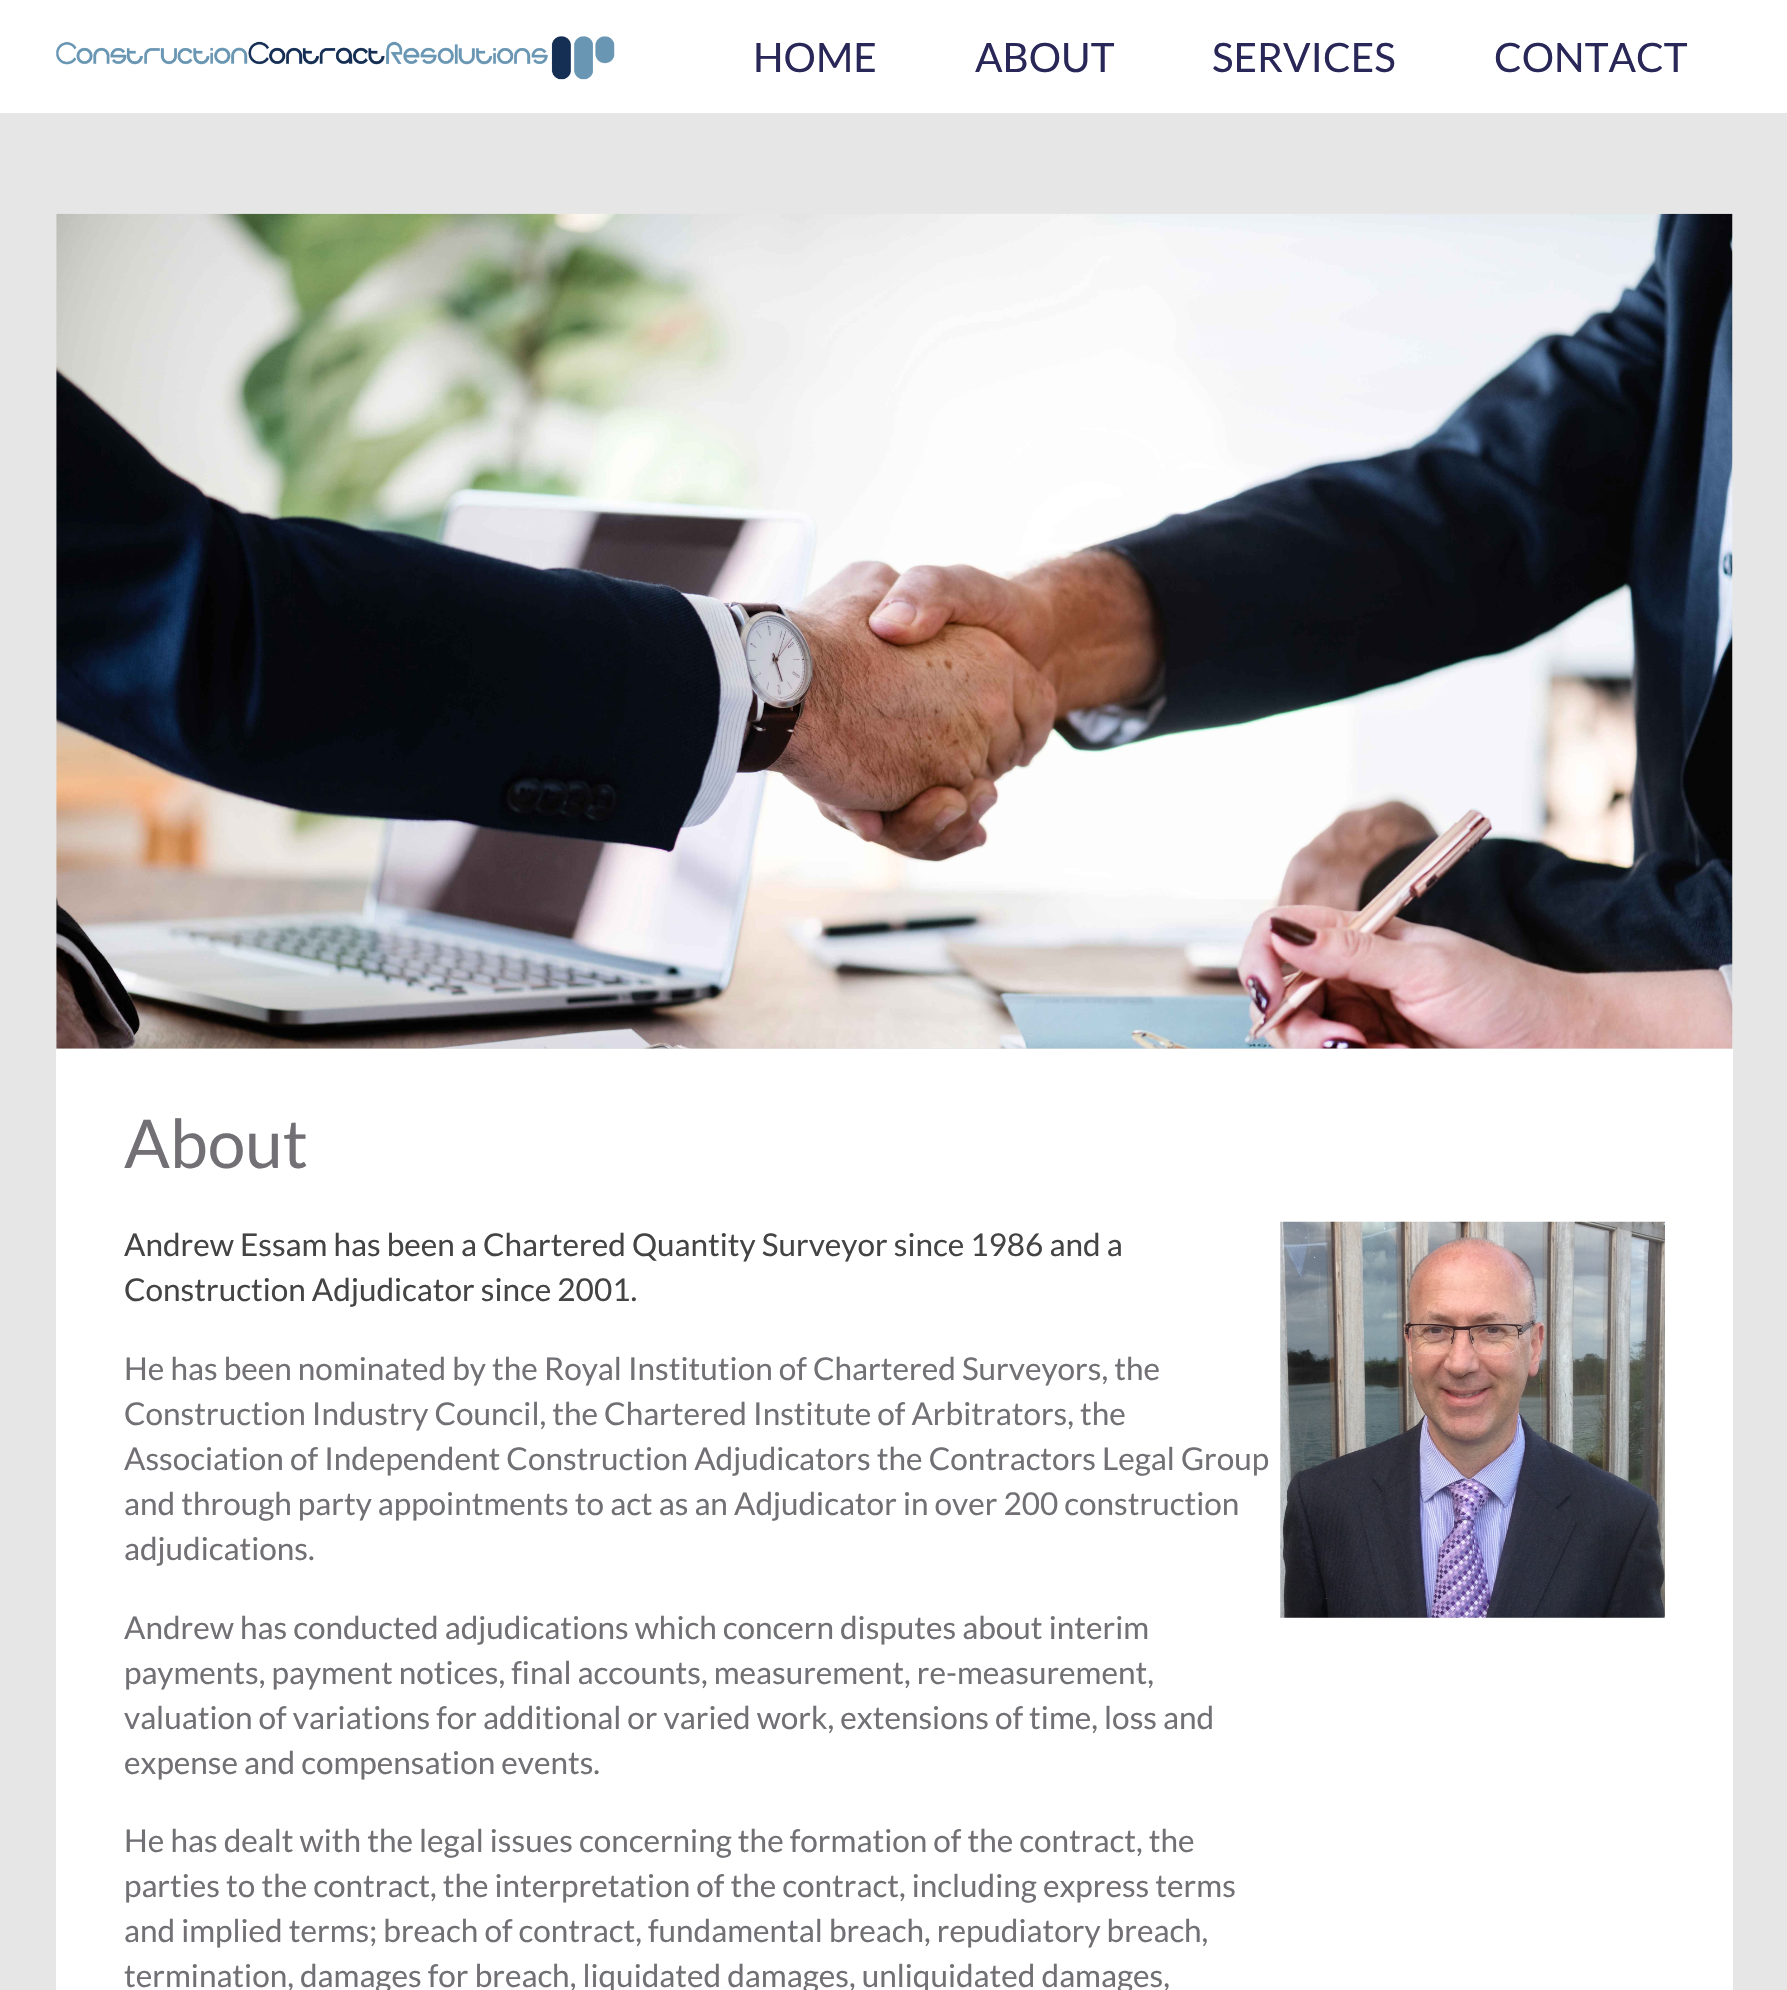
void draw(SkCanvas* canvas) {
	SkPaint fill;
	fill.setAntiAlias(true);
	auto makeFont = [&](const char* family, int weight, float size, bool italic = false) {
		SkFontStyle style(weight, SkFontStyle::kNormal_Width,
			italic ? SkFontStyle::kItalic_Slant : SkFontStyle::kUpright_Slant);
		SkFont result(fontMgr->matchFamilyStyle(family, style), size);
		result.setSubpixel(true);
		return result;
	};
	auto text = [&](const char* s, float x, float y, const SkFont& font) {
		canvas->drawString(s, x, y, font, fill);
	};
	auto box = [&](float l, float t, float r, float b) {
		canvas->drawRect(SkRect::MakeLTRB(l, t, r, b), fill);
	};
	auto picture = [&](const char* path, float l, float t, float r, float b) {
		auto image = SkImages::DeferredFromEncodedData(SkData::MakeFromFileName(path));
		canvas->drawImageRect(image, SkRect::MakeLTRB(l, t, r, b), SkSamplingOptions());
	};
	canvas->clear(0xFFFFFFFF);
	picture("image0.png", 56, 36, 615, 80);
	fill.setColor(0xFFE6E6E6);
	box(0, 113, 1787, 1990);
	picture("image1.png", 56, 213, 1733, 1049);
	fill.setColor(0xFFFFFFFF);
	box(56, 1049, 1733, 1990);
	picture("image2.png", 1280, 1221, 1665, 1618);
	auto font1 = makeFont("Lato", 400, 40.5f);
	fill.setColor(0xFF292658);
	text("HOME", 753, 72, font1);
	text("ABOUT", 975, 72, font1);
	text("SERVICES", 1212, 72, font1);
	text("CONTACT", 1494, 72, font1);
	auto font2 = makeFont("Lato", 400, 67.5f);
	fill.setColor(0xFF727074);
	text("About", 124, 1168, font2);
	auto font3 = makeFont("Lato", 400, 31.5f);
	fill.setColor(0xFF444444);
	text("Andrew Essam has been a Chartered Quantity Surveyor since 1986 and a", 124, 1256, font3);
	text("Construction Adjudicator since 2001.", 124, 1301, font3);
	fill.setColor(0xFF727074);
	text("He has been nominated by the Royal Institution of Chartered Surveyors, the", 124, 1380, font3);
	text("Construction Industry Council, the Chartered Institute of Arbitrators, the", 124, 1425, font3);
	text("Association of Independent Construction Adjudicators the Contractors Legal Group", 124, 1470, font3);
	text("and through party appointments to act as an Adjudicator in over 200 construction", 124, 1515, font3);
	text("adjudications.", 124, 1560, font3);
	text("Andrew has conducted adjudications which concern disputes about interim", 124, 1639, font3);
	text("payments, payment notices, final accounts, measurement, re-measurement,", 124, 1684, font3);
	text("valuation of variations for additional or varied work, extensions of time, loss and", 124, 1729, font3);
	text("expense and compensation events.", 124, 1774, font3);
	text("He has dealt with the legal issues concerning the formation of the contract, the", 124, 1852, font3);
	text("parties to the contract, the interpretation of the contract, including express terms", 124, 1897, font3);
	text("and implied terms; breach of contract, fundamental breach, repudiatory breach,", 124, 1942, font3);
	text("termination, damages for breach, liquidated damages, unliquidated damages,", 124, 1987, font3);
}
